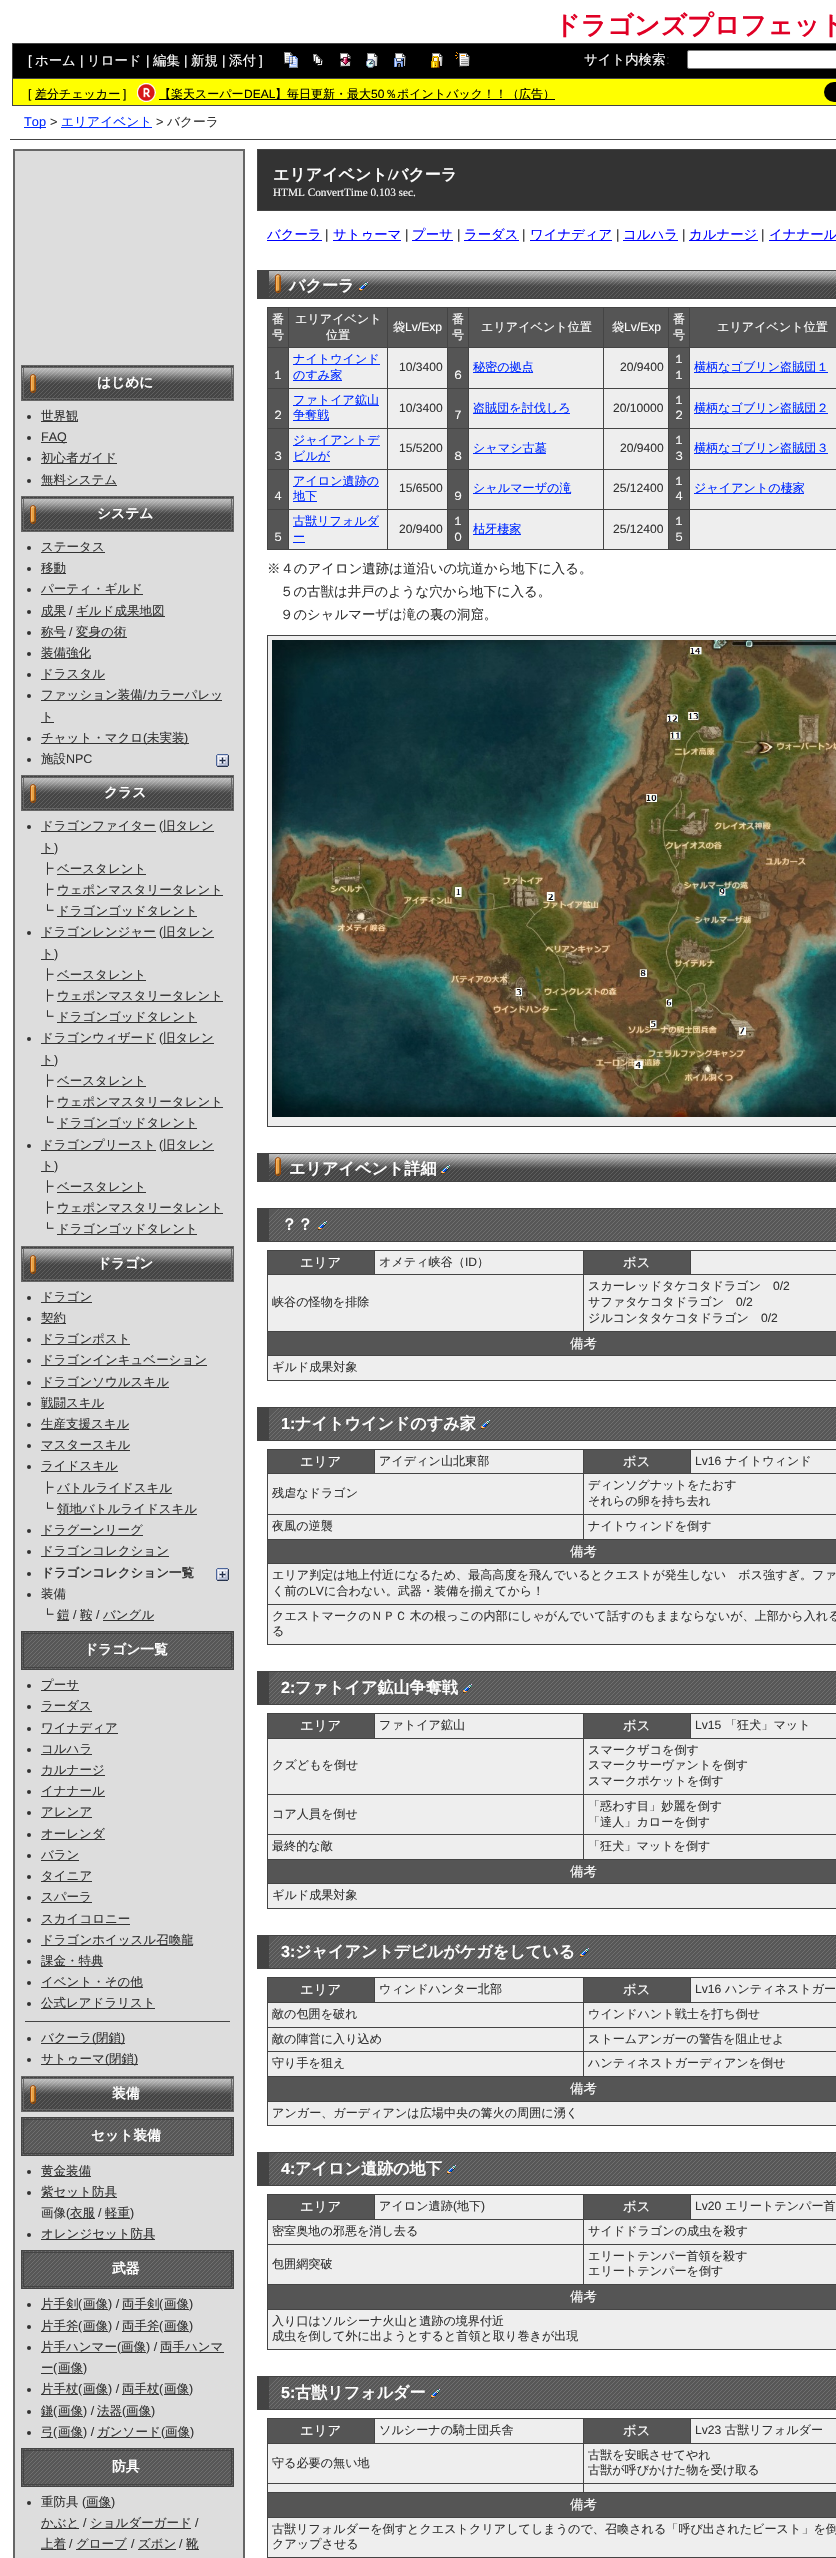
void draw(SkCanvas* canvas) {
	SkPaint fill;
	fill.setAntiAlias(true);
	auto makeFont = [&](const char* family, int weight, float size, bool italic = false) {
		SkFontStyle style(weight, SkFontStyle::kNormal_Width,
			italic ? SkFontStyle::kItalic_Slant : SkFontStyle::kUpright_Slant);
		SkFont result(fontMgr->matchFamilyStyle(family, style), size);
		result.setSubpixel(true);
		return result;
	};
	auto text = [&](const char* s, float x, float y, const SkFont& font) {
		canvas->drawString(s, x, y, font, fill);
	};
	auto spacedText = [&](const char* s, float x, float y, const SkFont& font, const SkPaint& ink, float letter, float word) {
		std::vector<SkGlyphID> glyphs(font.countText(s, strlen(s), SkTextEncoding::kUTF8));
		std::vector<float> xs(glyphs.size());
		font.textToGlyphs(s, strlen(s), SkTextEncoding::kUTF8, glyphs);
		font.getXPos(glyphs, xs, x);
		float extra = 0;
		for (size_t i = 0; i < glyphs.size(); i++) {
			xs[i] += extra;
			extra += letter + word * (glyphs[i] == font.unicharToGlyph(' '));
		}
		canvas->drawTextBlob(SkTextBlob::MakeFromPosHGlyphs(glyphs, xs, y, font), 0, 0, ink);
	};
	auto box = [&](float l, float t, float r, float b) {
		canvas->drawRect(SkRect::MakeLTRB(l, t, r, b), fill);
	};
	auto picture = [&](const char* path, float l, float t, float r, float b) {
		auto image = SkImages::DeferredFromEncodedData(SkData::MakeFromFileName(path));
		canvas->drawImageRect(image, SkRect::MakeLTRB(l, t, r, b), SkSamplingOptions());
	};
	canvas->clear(0xFFFFFFFF);
	fill.setColor(0xFF000000);
	canvas->drawRect(SkRect::MakeLTRB(12.5f, 43.5f, 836.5f, 78.5f), fill);
	fill.setStyle(SkPaint::kStroke_Style);
	fill.setStrokeWidth(1);
	fill.setColor(0xFF444444);
	canvas->drawRect(SkRect::MakeLTRB(12.5f, 43.5f, 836.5f, 78.5f), fill);
	picture("image0.png", 284, 52, 298, 68);
	picture("image1.png", 313, 54, 323, 66);
	picture("image2.png", 340, 53, 351, 67);
	picture("image3.png", 366, 53, 378, 68);
	picture("image4.png", 394, 53, 406, 67);
	picture("image5.png", 431, 53, 443, 68);
	picture("image6.png", 455, 52, 470, 67);
	fill.setStyle(SkPaint::kFill_Style);
	fill.setColor(0xFFFFFFFF);
	canvas->drawRoundRect(SkRect::MakeLTRB(687.5f, 50.5f, 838.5f, 68.5f), 1.5f, 1.5f, fill);
	fill.setStyle(SkPaint::kStroke_Style);
	fill.setColor(0xFF767676);
	canvas->drawRoundRect(SkRect::MakeLTRB(687.5f, 50.5f, 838.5f, 68.5f), 1.5f, 1.5f, fill);
	fill.setStyle(SkPaint::kFill_Style);
	fill.setColor(0xFFFFFF00);
	box(13, 79, 836, 105);
	fill.setColor(0xFF444444);
	box(12, 105, 836, 106);
	box(12, 79, 13, 106);
	fill.setColor(0xFF000000);
	box(35, 99, 120, 100);
	picture("image7.png", 137, 83, 156, 102);
	box(159, 99, 555, 100);
	picture("image8.png", 824, 82, 836, 102);
	fill.setColor(0xFF002AFF);
	box(24, 127, 46, 128);
	box(61, 127, 152, 128);
	fill.setColor(0xFF444444);
	box(10, 139, 836, 140);
	fill.setColor(0xFFDDDDDD);
	canvas->drawRect(SkRect::MakeLTRB(14, 150, 244, 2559), fill);
	fill.setStyle(SkPaint::kStroke_Style);
	fill.setStrokeWidth(2);
	fill.setColor(0xFF666666);
	canvas->drawRect(SkRect::MakeLTRB(14, 150, 244, 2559), fill);
	picture("image9.png", 22, 366, 233, 400);
	fill.setStrokeWidth(1);
	canvas->drawRect(SkRect::MakeLTRB(21.5f, 365.5f, 233.5f, 400.5f), fill);
	canvas->drawRect(SkRect::MakeLTRB(23.5f, 367.5f, 231.5f, 398.5f), fill);
	fill.setStyle(SkPaint::kFill_Style);
	fill.setColor(0xFF333333);
	canvas->drawCircle(29, 417, 2, fill);
	box(41, 421, 78, 422);
	canvas->drawCircle(29, 438, 2, fill);
	box(41, 442, 67, 443);
	canvas->drawCircle(29, 459, 2, fill);
	box(41, 463, 117, 464);
	canvas->drawCircle(29, 481, 2, fill);
	box(41, 485, 117, 486);
	picture("image9.png", 22, 497, 233, 531);
	fill.setStyle(SkPaint::kStroke_Style);
	fill.setColor(0xFF666666);
	canvas->drawRect(SkRect::MakeLTRB(21.5f, 496.5f, 233.5f, 531.5f), fill);
	canvas->drawRect(SkRect::MakeLTRB(23.5f, 498.5f, 231.5f, 529.5f), fill);
	fill.setStyle(SkPaint::kFill_Style);
	fill.setColor(0xFF333333);
	canvas->drawCircle(29, 548, 2, fill);
	box(41, 552, 105, 553);
	canvas->drawCircle(29, 569, 2, fill);
	box(41, 573, 66, 574);
	canvas->drawCircle(29, 590, 2, fill);
	box(41, 594, 143, 595);
	canvas->drawCircle(29, 612, 2, fill);
	box(41, 616, 66, 617);
	box(76, 616, 165, 617);
	canvas->drawCircle(29, 633, 2, fill);
	box(41, 637, 66, 638);
	box(76, 637, 127, 638);
	canvas->drawCircle(29, 654, 2, fill);
	box(41, 658, 91, 659);
	canvas->drawCircle(29, 675, 2, fill);
	box(41, 679, 105, 680);
	box(41, 700, 222, 701);
	canvas->drawCircle(29, 696, 2, fill);
	box(41, 722, 54, 723);
	canvas->drawCircle(29, 739, 2, fill);
	box(41, 743, 189, 744);
	canvas->drawCircle(29, 760, 2, fill);
	picture("image10.png", 216, 754, 229, 767);
	picture("image9.png", 22, 776, 233, 810);
	fill.setStyle(SkPaint::kStroke_Style);
	fill.setColor(0xFF666666);
	canvas->drawRect(SkRect::MakeLTRB(21.5f, 775.5f, 233.5f, 810.5f), fill);
	canvas->drawRect(SkRect::MakeLTRB(23.5f, 777.5f, 231.5f, 808.5f), fill);
	fill.setStyle(SkPaint::kFill_Style);
	fill.setColor(0xFF333333);
	canvas->drawCircle(29, 827, 2, fill);
	box(41, 831, 156, 832);
	box(163, 831, 214, 832);
	box(41, 853, 54, 854);
	box(57, 874, 146, 875);
	box(57, 895, 223, 896);
	box(57, 916, 197, 917);
	canvas->drawCircle(29, 933, 2, fill);
	box(41, 937, 156, 938);
	box(163, 937, 214, 938);
	box(41, 959, 54, 960);
	box(57, 980, 146, 981);
	box(57, 1001, 223, 1002);
	box(57, 1022, 197, 1023);
	canvas->drawCircle(29, 1039, 2, fill);
	box(41, 1043, 156, 1044);
	box(163, 1043, 214, 1044);
	box(41, 1065, 54, 1066);
	box(57, 1086, 146, 1087);
	box(57, 1107, 223, 1108);
	box(57, 1128, 197, 1129);
	canvas->drawCircle(29, 1146, 2, fill);
	box(41, 1150, 156, 1151);
	box(163, 1150, 214, 1151);
	box(41, 1171, 54, 1172);
	box(57, 1192, 146, 1193);
	box(57, 1213, 223, 1214);
	box(57, 1234, 197, 1235);
	picture("image9.png", 22, 1247, 233, 1281);
	fill.setStyle(SkPaint::kStroke_Style);
	fill.setColor(0xFF666666);
	canvas->drawRect(SkRect::MakeLTRB(21.5f, 1246.5f, 233.5f, 1281.5f), fill);
	canvas->drawRect(SkRect::MakeLTRB(23.5f, 1248.5f, 231.5f, 1279.5f), fill);
	fill.setStyle(SkPaint::kFill_Style);
	fill.setColor(0xFF333333);
	canvas->drawCircle(29, 1298, 2, fill);
	box(41, 1302, 92, 1303);
	canvas->drawCircle(29, 1319, 2, fill);
	box(41, 1323, 66, 1324);
	canvas->drawCircle(29, 1340, 2, fill);
	box(41, 1344, 130, 1345);
	canvas->drawCircle(29, 1361, 2, fill);
	box(41, 1365, 207, 1366);
	canvas->drawCircle(29, 1383, 2, fill);
	box(41, 1387, 169, 1388);
	canvas->drawCircle(29, 1404, 2, fill);
	box(41, 1408, 104, 1409);
	canvas->drawCircle(29, 1425, 2, fill);
	box(41, 1429, 129, 1430);
	canvas->drawCircle(29, 1446, 2, fill);
	box(41, 1450, 130, 1451);
	canvas->drawCircle(29, 1467, 2, fill);
	box(41, 1471, 118, 1472);
	box(57, 1493, 172, 1494);
	box(57, 1514, 197, 1515);
	canvas->drawCircle(29, 1531, 2, fill);
	box(41, 1535, 143, 1536);
	canvas->drawCircle(29, 1552, 2, fill);
	box(41, 1556, 169, 1557);
	canvas->drawCircle(29, 1574, 2, fill);
	picture("image10.png", 216, 1568, 229, 1581);
	canvas->drawCircle(29, 1595, 2, fill);
	box(57, 1620, 69, 1621);
	box(80, 1620, 92, 1621);
	box(103, 1620, 154, 1621);
	picture("image11.png", 22, 1632, 233, 1669);
	fill.setStyle(SkPaint::kStroke_Style);
	fill.setColor(0xFF444444);
	canvas->drawRect(SkRect::MakeLTRB(21.5f, 1631.5f, 233.5f, 1669.5f), fill);
	canvas->drawRect(SkRect::MakeLTRB(23.5f, 1633.5f, 231.5f, 1667.5f), fill);
	fill.setStyle(SkPaint::kFill_Style);
	fill.setColor(0xFF333333);
	canvas->drawCircle(29, 1686, 2, fill);
	box(41, 1690, 79, 1691);
	canvas->drawCircle(29, 1707, 2, fill);
	box(41, 1711, 92, 1712);
	canvas->drawCircle(29, 1729, 2, fill);
	box(41, 1733, 118, 1734);
	canvas->drawCircle(29, 1750, 2, fill);
	box(41, 1754, 92, 1755);
	canvas->drawCircle(29, 1771, 2, fill);
	box(41, 1775, 105, 1776);
	canvas->drawCircle(29, 1792, 2, fill);
	box(41, 1796, 105, 1797);
	canvas->drawCircle(29, 1813, 2, fill);
	box(41, 1817, 92, 1818);
	canvas->drawCircle(29, 1835, 2, fill);
	box(41, 1839, 105, 1840);
	canvas->drawCircle(29, 1856, 2, fill);
	box(41, 1860, 79, 1861);
	canvas->drawCircle(29, 1877, 2, fill);
	box(41, 1881, 92, 1882);
	canvas->drawCircle(29, 1898, 2, fill);
	box(41, 1902, 92, 1903);
	canvas->drawCircle(29, 1920, 2, fill);
	box(41, 1924, 130, 1925);
	canvas->drawCircle(29, 1941, 2, fill);
	box(41, 1945, 193, 1946);
	canvas->drawCircle(29, 1962, 2, fill);
	box(41, 1966, 103, 1967);
	canvas->drawCircle(29, 1983, 2, fill);
	box(41, 1987, 143, 1988);
	canvas->drawCircle(29, 2004, 2, fill);
	box(41, 2008, 155, 2009);
	fill.setColor(0xFF444444);
	box(25, 2021, 230, 2022);
	fill.setColor(0xFF333333);
	canvas->drawCircle(29, 2039, 2, fill);
	box(41, 2043, 125, 2044);
	canvas->drawCircle(29, 2060, 2, fill);
	box(41, 2064, 138, 2065);
	picture("image9.png", 22, 2077, 233, 2111);
	fill.setStyle(SkPaint::kStroke_Style);
	fill.setColor(0xFF666666);
	canvas->drawRect(SkRect::MakeLTRB(21.5f, 2076.5f, 233.5f, 2111.5f), fill);
	canvas->drawRect(SkRect::MakeLTRB(23.5f, 2078.5f, 231.5f, 2109.5f), fill);
	picture("image11.png", 22, 2118, 233, 2155);
	fill.setColor(0xFF444444);
	canvas->drawRect(SkRect::MakeLTRB(21.5f, 2117.5f, 233.5f, 2155.5f), fill);
	canvas->drawRect(SkRect::MakeLTRB(23.5f, 2119.5f, 231.5f, 2153.5f), fill);
	fill.setStyle(SkPaint::kFill_Style);
	fill.setColor(0xFF333333);
	canvas->drawCircle(29, 2172, 2, fill);
	box(41, 2176, 91, 2177);
	canvas->drawCircle(29, 2193, 2, fill);
	box(41, 2197, 117, 2198);
	box(70, 2218, 95, 2219);
	box(105, 2218, 130, 2219);
	canvas->drawCircle(29, 2235, 2, fill);
	box(41, 2239, 155, 2240);
	picture("image11.png", 22, 2251, 233, 2288);
	fill.setStyle(SkPaint::kStroke_Style);
	fill.setColor(0xFF444444);
	canvas->drawRect(SkRect::MakeLTRB(21.5f, 2250.5f, 233.5f, 2288.5f), fill);
	canvas->drawRect(SkRect::MakeLTRB(23.5f, 2252.5f, 231.5f, 2286.5f), fill);
	fill.setStyle(SkPaint::kFill_Style);
	fill.setColor(0xFF333333);
	canvas->drawCircle(29, 2305, 2, fill);
	box(41, 2309, 78, 2310);
	box(83, 2309, 108, 2310);
	box(122, 2309, 159, 2310);
	box(164, 2309, 189, 2310);
	canvas->drawCircle(29, 2327, 2, fill);
	box(41, 2331, 78, 2332);
	box(83, 2331, 108, 2332);
	box(122, 2331, 159, 2332);
	box(164, 2331, 189, 2332);
	canvas->drawCircle(29, 2348, 2, fill);
	box(41, 2352, 117, 2353);
	box(121, 2352, 146, 2353);
	box(160, 2352, 224, 2353);
	box(41, 2373, 53, 2374);
	box(58, 2373, 83, 2374);
	canvas->drawCircle(29, 2390, 2, fill);
	box(41, 2394, 78, 2395);
	box(83, 2394, 108, 2395);
	box(122, 2394, 159, 2395);
	box(164, 2394, 189, 2395);
	canvas->drawCircle(29, 2412, 2, fill);
	box(41, 2416, 53, 2417);
	box(58, 2416, 83, 2417);
	box(97, 2416, 122, 2417);
	box(126, 2416, 151, 2417);
	canvas->drawCircle(29, 2433, 2, fill);
	box(41, 2437, 53, 2438);
	box(58, 2437, 83, 2438);
	box(97, 2437, 161, 2438);
	box(165, 2437, 190, 2438);
	picture("image11.png", 22, 2449, 233, 2486);
	fill.setStyle(SkPaint::kStroke_Style);
	fill.setColor(0xFF444444);
	canvas->drawRect(SkRect::MakeLTRB(21.5f, 2448.5f, 233.5f, 2486.5f), fill);
	canvas->drawRect(SkRect::MakeLTRB(23.5f, 2450.5f, 231.5f, 2484.5f), fill);
	fill.setStyle(SkPaint::kFill_Style);
	fill.setColor(0xFF333333);
	canvas->drawCircle(29, 2503, 2, fill);
	box(86, 2507, 111, 2508);
	box(41, 2528, 79, 2529);
	box(90, 2528, 191, 2529);
	box(41, 2549, 66, 2550);
	box(76, 2549, 127, 2550);
	box(138, 2549, 176, 2550);
	box(186, 2549, 199, 2550);
	canvas->drawRect(SkRect::MakeLTRB(257.5f, 149.5f, 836.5f, 210.5f), fill);
	fill.setStyle(SkPaint::kStroke_Style);
	fill.setColor(0xFF444444);
	canvas->drawRect(SkRect::MakeLTRB(257.5f, 149.5f, 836.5f, 210.5f), fill);
	fill.setStyle(SkPaint::kFill_Style);
	fill.setColor(0xFF0000FF);
	box(267, 240, 322, 241);
	box(333, 240, 401, 241);
	box(412, 240, 453, 241);
	box(464, 240, 519, 241);
	box(530, 240, 612, 241);
	box(623, 240, 678, 241);
	box(689, 240, 758, 241);
	box(769, 240, 836, 241);
	picture("image12.png", 269, 271, 836, 298);
	fill.setColor(0xFF444444);
	box(269, 270, 836, 271);
	box(269, 298, 836, 299);
	box(257, 270, 269, 299);
	picture("image13.png", 359, 282, 368, 291);
	box(267, 307, 836, 550);
	fill.setColor(0xFF555555);
	box(268, 308, 288, 347);
	box(289, 308, 387, 347);
	box(388, 308, 447, 347);
	box(448, 308, 468, 347);
	box(469, 308, 603, 347);
	box(604, 308, 668, 347);
	box(669, 308, 689, 347);
	box(690, 308, 836, 347);
	fill.setColor(0xFFEEEEEE);
	box(289, 348, 387, 388);
	fill.setColor(0xFF002AFF);
	box(293, 364, 380, 365);
	box(293, 380, 342, 381);
	fill.setColor(0xFFEEEEEE);
	box(388, 348, 447, 388);
	box(469, 348, 603, 388);
	fill.setColor(0xFF002AFF);
	box(473, 372, 533, 373);
	fill.setColor(0xFFEEEEEE);
	box(604, 348, 668, 388);
	fill.setColor(0xFF555555);
	box(669, 348, 689, 388);
	fill.setColor(0xFFEEEEEE);
	box(690, 348, 836, 388);
	fill.setColor(0xFF002AFF);
	box(694, 372, 828, 373);
	fill.setColor(0xFF555555);
	box(268, 348, 288, 388);
	box(448, 348, 468, 388);
	fill.setColor(0xFFEEEEEE);
	box(289, 389, 387, 428);
	fill.setColor(0xFF002AFF);
	box(293, 405, 379, 406);
	box(293, 420, 329, 421);
	fill.setColor(0xFFEEEEEE);
	box(388, 389, 447, 428);
	box(469, 389, 603, 428);
	fill.setColor(0xFF002AFF);
	box(473, 413, 570, 414);
	fill.setColor(0xFFEEEEEE);
	box(604, 389, 668, 428);
	fill.setColor(0xFF555555);
	box(669, 389, 689, 428);
	fill.setColor(0xFFEEEEEE);
	box(690, 389, 836, 428);
	fill.setColor(0xFF002AFF);
	box(694, 413, 828, 414);
	fill.setColor(0xFF555555);
	box(268, 389, 288, 428);
	box(448, 389, 468, 428);
	fill.setColor(0xFFEEEEEE);
	box(289, 429, 387, 469);
	fill.setColor(0xFF002AFF);
	box(293, 445, 380, 446);
	box(293, 461, 330, 462);
	fill.setColor(0xFFEEEEEE);
	box(388, 429, 447, 469);
	box(469, 429, 603, 469);
	fill.setColor(0xFF002AFF);
	box(473, 453, 546, 454);
	fill.setColor(0xFFEEEEEE);
	box(604, 429, 668, 469);
	fill.setColor(0xFF555555);
	box(669, 429, 689, 469);
	fill.setColor(0xFFEEEEEE);
	box(690, 429, 836, 469);
	fill.setColor(0xFF002AFF);
	box(694, 453, 828, 454);
	fill.setColor(0xFF555555);
	box(268, 429, 288, 469);
	box(448, 429, 468, 469);
	fill.setColor(0xFFEEEEEE);
	box(289, 470, 387, 509);
	fill.setColor(0xFF002AFF);
	box(293, 486, 379, 487);
	box(293, 501, 317, 502);
	fill.setColor(0xFFEEEEEE);
	box(388, 470, 447, 509);
	box(469, 470, 603, 509);
	fill.setColor(0xFF002AFF);
	box(473, 493, 571, 494);
	fill.setColor(0xFFEEEEEE);
	box(604, 470, 668, 509);
	fill.setColor(0xFF555555);
	box(669, 470, 689, 509);
	fill.setColor(0xFFEEEEEE);
	box(690, 470, 836, 509);
	fill.setColor(0xFF002AFF);
	box(694, 493, 804, 494);
	fill.setColor(0xFF555555);
	box(268, 470, 288, 509);
	box(448, 470, 468, 509);
	fill.setColor(0xFFEEEEEE);
	box(289, 510, 387, 549);
	fill.setColor(0xFF002AFF);
	box(293, 526, 379, 527);
	box(293, 542, 305, 543);
	fill.setColor(0xFFEEEEEE);
	box(388, 510, 447, 549);
	fill.setColor(0xFF555555);
	box(448, 510, 468, 549);
	fill.setColor(0xFFEEEEEE);
	box(469, 510, 603, 549);
	fill.setColor(0xFF002AFF);
	box(473, 534, 521, 535);
	fill.setColor(0xFFEEEEEE);
	box(604, 510, 668, 549);
	fill.setColor(0xFF555555);
	box(669, 510, 689, 549);
	fill.setColor(0xFFEEEEEE);
	box(690, 510, 836, 549);
	fill.setColor(0xFF555555);
	box(268, 510, 288, 549);
	fill.setColor(0xFF444444);
	box(267, 635, 836, 1127);
	fill.setColor(0xFFEEEEEE);
	box(268, 636, 836, 1126);
	picture("image14.png", 272, 640, 836, 1117);
	picture("image12.png", 269, 1154, 836, 1181);
	fill.setColor(0xFF444444);
	box(269, 1153, 836, 1154);
	box(269, 1181, 836, 1182);
	box(257, 1153, 269, 1182);
	picture("image15.png", 441, 1165, 450, 1174);
	picture("image16.png", 269, 1209, 836, 1241);
	box(269, 1208, 836, 1209);
	box(269, 1241, 836, 1242);
	box(257, 1208, 269, 1242);
	picture("image17.png", 318, 1221, 327, 1230);
	box(267, 1250, 836, 1381);
	fill.setColor(0xFF555555);
	box(268, 1251, 374, 1274);
	fill.setColor(0xFFEEEEEE);
	box(375, 1251, 583, 1274);
	fill.setColor(0xFF555555);
	box(584, 1251, 690, 1274);
	fill.setColor(0xFFEEEEEE);
	box(691, 1251, 836, 1274);
	box(268, 1275, 583, 1331);
	box(584, 1275, 836, 1331);
	fill.setColor(0xFF555555);
	box(268, 1332, 836, 1355);
	fill.setColor(0xFFEEEEEE);
	box(268, 1356, 836, 1380);
	picture("image16.png", 269, 1408, 836, 1440);
	fill.setColor(0xFF444444);
	box(269, 1407, 836, 1408);
	box(269, 1440, 836, 1441);
	box(257, 1407, 269, 1441);
	picture("image18.png", 481, 1420, 490, 1429);
	box(267, 1449, 836, 1645);
	fill.setColor(0xFF555555);
	box(268, 1450, 374, 1473);
	fill.setColor(0xFFEEEEEE);
	box(375, 1450, 583, 1473);
	fill.setColor(0xFF555555);
	box(584, 1450, 690, 1473);
	fill.setColor(0xFFEEEEEE);
	box(691, 1450, 836, 1473);
	box(268, 1474, 583, 1514);
	box(584, 1474, 836, 1514);
	box(268, 1515, 583, 1539);
	box(584, 1515, 836, 1539);
	fill.setColor(0xFF555555);
	box(268, 1540, 836, 1563);
	fill.setColor(0xFFEEEEEE);
	box(268, 1564, 836, 1604);
	box(268, 1605, 836, 1644);
	picture("image16.png", 269, 1672, 836, 1704);
	fill.setColor(0xFF444444);
	box(269, 1671, 836, 1672);
	box(269, 1704, 836, 1705);
	box(257, 1671, 269, 1705);
	picture("image19.png", 463, 1684, 472, 1693);
	box(267, 1713, 836, 1909);
	fill.setColor(0xFF555555);
	box(268, 1714, 374, 1738);
	fill.setColor(0xFFEEEEEE);
	box(375, 1714, 583, 1738);
	fill.setColor(0xFF555555);
	box(584, 1714, 690, 1738);
	fill.setColor(0xFFEEEEEE);
	box(691, 1714, 836, 1738);
	box(268, 1739, 583, 1794);
	box(584, 1739, 836, 1794);
	box(268, 1795, 583, 1834);
	box(584, 1795, 836, 1834);
	box(268, 1835, 583, 1859);
	box(584, 1835, 836, 1859);
	fill.setColor(0xFF555555);
	box(268, 1860, 836, 1883);
	fill.setColor(0xFFEEEEEE);
	box(268, 1884, 836, 1908);
	picture("image16.png", 269, 1936, 836, 1968);
	fill.setColor(0xFF444444);
	box(269, 1935, 836, 1936);
	box(269, 1968, 836, 1969);
	box(257, 1935, 269, 1969);
	picture("image20.png", 580, 1948, 589, 1957);
	box(267, 1977, 836, 2126);
	fill.setColor(0xFF555555);
	box(268, 1978, 374, 2002);
	fill.setColor(0xFFEEEEEE);
	box(375, 1978, 583, 2002);
	fill.setColor(0xFF555555);
	box(584, 1978, 690, 2002);
	fill.setColor(0xFFEEEEEE);
	box(691, 1978, 836, 2002);
	box(268, 2003, 583, 2027);
	box(584, 2003, 836, 2027);
	box(268, 2028, 583, 2051);
	box(584, 2028, 836, 2051);
	box(268, 2052, 583, 2076);
	box(584, 2052, 836, 2076);
	fill.setColor(0xFF555555);
	box(268, 2077, 836, 2101);
	fill.setColor(0xFFEEEEEE);
	box(268, 2102, 836, 2125);
	picture("image16.png", 269, 2153, 836, 2185);
	fill.setColor(0xFF444444);
	box(269, 2152, 836, 2153);
	box(269, 2185, 836, 2186);
	box(257, 2152, 269, 2186);
	picture("image19.png", 447, 2165, 456, 2174);
	box(267, 2194, 836, 2350);
	fill.setColor(0xFF555555);
	box(268, 2195, 374, 2219);
	fill.setColor(0xFFEEEEEE);
	box(375, 2195, 583, 2219);
	fill.setColor(0xFF555555);
	box(584, 2195, 690, 2219);
	fill.setColor(0xFFEEEEEE);
	box(691, 2195, 836, 2219);
	box(268, 2220, 583, 2244);
	box(584, 2220, 836, 2244);
	box(268, 2245, 583, 2284);
	box(584, 2245, 836, 2284);
	fill.setColor(0xFF555555);
	box(268, 2285, 836, 2309);
	fill.setColor(0xFFEEEEEE);
	box(268, 2310, 836, 2349);
	picture("image16.png", 269, 2377, 836, 2409);
	fill.setColor(0xFF444444);
	box(269, 2376, 836, 2377);
	box(269, 2409, 836, 2410);
	box(257, 2376, 269, 2410);
	picture("image19.png", 431, 2389, 440, 2398);
	box(267, 2418, 836, 2558);
	fill.setColor(0xFF555555);
	box(268, 2419, 374, 2443);
	fill.setColor(0xFFEEEEEE);
	box(375, 2419, 583, 2443);
	fill.setColor(0xFF555555);
	box(584, 2419, 690, 2443);
	fill.setColor(0xFFEEEEEE);
	box(691, 2419, 836, 2443);
	box(268, 2444, 583, 2483);
	box(584, 2444, 836, 2483);
	box(268, 2484, 583, 2492);
	box(584, 2484, 836, 2492);
	fill.setColor(0xFF555555);
	box(268, 2493, 836, 2517);
	fill.setColor(0xFFEEEEEE);
	box(268, 2518, 836, 2557);
	auto font1 = makeFont("WenQuanYi Zen Hei", 700, 26);
	fill.setColor(0xFFE00025);
	text("ドラゴンズプロフェット", 554, 34, font1);
	auto font2 = makeFont("Liberation Sans", 400, 13.4f);
	fill.setColor(0xFFFFFFFF);
	text("[", 28, 65, font2);
	auto font3 = makeFont("WenQuanYi Zen Hei", 500, 13.4f);
	text("ホーム", 35, 65, font3);
	text("|", 80, 65, font2);
	text("リロード", 87, 65, font3);
	text("|", 146, 65, font2);
	text("編集", 153, 65, font3);
	text("|", 184, 65, font2);
	text("新規", 191, 65, font3);
	text("|", 222, 65, font2);
	text("添付", 229, 65, font3);
	text("]", 259, 65, font2);
	text("サイト内検索", 584, 64, font3);
	fill.setColor(0xFF333333);
	text(":", 666, 64, font2);
	auto font4 = makeFont("Liberation Sans", 400, 12);
	fill.setColor(0xFF000000);
	text("[", 28, 98, font4);
	auto font5 = makeFont("WenQuanYi Zen Hei", 500, 12);
	text("差分チェッカー", 35, 98, font5);
	text("]", 123, 98, font4);
	text("【楽天スーパー", 159, 98, font5);
	text("DEAL", 244, 98, font4);
	text("】毎日更新・最大", 275, 98, font5);
	text("50", 371, 98, font4);
	text("％ポイントバック！！（広告）", 385, 98, font5);
	auto font6 = makeFont("Liberation Sans", 400, 12.75f);
	fill.setColor(0xFF002AFF);
	text("Top", 24, 126, font6);
	fill.setColor(0xFF333333);
	text(">", 50, 126, font6);
	auto font7 = makeFont("WenQuanYi Zen Hei", 500, 12.75f);
	fill.setColor(0xFF002AFF);
	text("エリアイベント", 61, 126, font7);
	fill.setColor(0xFF333333);
	text(">", 156, 126, font6);
	text("バクーラ", 167, 126, font7);
	auto font8 = makeFont("WenQuanYi Zen Hei", 700, 13.75f);
	fill.setColor(0xFFFFFFFF);
	text("はじめに", 97, 387, font8);
	auto font9 = makeFont("WenQuanYi Zen Hei", 500, 12.5f);
	fill.setColor(0xFF333333);
	text("世界観", 41, 420, font9);
	auto font10 = makeFont("Liberation Sans", 400, 12.5f);
	text("FAQ", 41, 441, font10);
	text("初心者ガイド", 41, 462, font9);
	text("無料システム", 41, 484, font9);
	fill.setColor(0xFFFFFFFF);
	text("システム", 97, 518, font8);
	fill.setColor(0xFF333333);
	text("ステータス", 41, 551, font9);
	text("移動", 41, 572, font9);
	text("パーティ・ギルド", 41, 593, font9);
	text("成果", 41, 615, font9);
	text("/", 69, 615, font10);
	text("ギルド成果地図", 76, 615, font9);
	text("称号", 41, 636, font9);
	text("/", 69, 636, font10);
	text("変身の術", 76, 636, font9);
	text("装備強化", 41, 657, font9);
	text("ドラスタル", 41, 678, font9);
	text("ファッション装備 カラーパレッ", 41, 699, font9);
	text("/", 143, 699, font10);
	text("ト", 41, 721, font9);
	text("チャット・マクロ", 41, 742, font9);
	text("(", 143, 742, font10);
	text("未実装", 147, 742, font9);
	text(")", 184, 742, font10);
	text("施設", 41, 763, font9);
	text("NPC", 66, 763, font10);
	fill.setColor(0xFFFFFFFF);
	text("クラス", 104, 797, font8);
	fill.setColor(0xFF333333);
	text("ドラゴンファイター", 41, 830, font9);
	text("(", 159, 830, font10);
	text("旧タレン", 163, 830, font9);
	text("ト", 41, 852, font9);
	text(")", 54, 852, font10);
	text("┣", 41, 873, font9);
	text("ベースタレント", 57, 873, font9);
	text("┣", 41, 894, font9);
	text("ウェポンマスタリータレント", 57, 894, font9);
	text("┗", 41, 915, font9);
	text("ドラゴンゴッドタレント", 57, 915, font9);
	text("ドラゴンレンジャー", 41, 936, font9);
	text("(", 159, 936, font10);
	text("旧タレン", 163, 936, font9);
	text("ト", 41, 958, font9);
	text(")", 54, 958, font10);
	text("┣", 41, 979, font9);
	text("ベースタレント", 57, 979, font9);
	text("┣", 41, 1000, font9);
	text("ウェポンマスタリータレント", 57, 1000, font9);
	text("┗", 41, 1021, font9);
	text("ドラゴンゴッドタレント", 57, 1021, font9);
	text("ドラゴンウィザード", 41, 1042, font9);
	text("(", 159, 1042, font10);
	text("旧タレン", 163, 1042, font9);
	text("ト", 41, 1064, font9);
	text(")", 54, 1064, font10);
	text("┣", 41, 1085, font9);
	text("ベースタレント", 57, 1085, font9);
	text("┣", 41, 1106, font9);
	text("ウェポンマスタリータレント", 57, 1106, font9);
	text("┗", 41, 1127, font9);
	text("ドラゴンゴッドタレント", 57, 1127, font9);
	text("ドラゴンプリースト", 41, 1149, font9);
	text("(", 159, 1149, font10);
	text("旧タレン", 163, 1149, font9);
	text("ト", 41, 1170, font9);
	text(")", 54, 1170, font10);
	text("┣", 41, 1191, font9);
	text("ベースタレント", 57, 1191, font9);
	text("┣", 41, 1212, font9);
	text("ウェポンマスタリータレント", 57, 1212, font9);
	text("┗", 41, 1233, font9);
	text("ドラゴンゴッドタレント", 57, 1233, font9);
	fill.setColor(0xFFFFFFFF);
	text("ドラゴン", 97, 1268, font8);
	fill.setColor(0xFF333333);
	text("ドラゴン", 41, 1301, font9);
	text("契約", 41, 1322, font9);
	text("ドラゴンポスト", 41, 1343, font9);
	text("ドラゴンインキュベーション", 41, 1364, font9);
	text("ドラゴンソウルスキル", 41, 1386, font9);
	text("戦闘スキル", 41, 1407, font9);
	text("生産支援スキル", 41, 1428, font9);
	text("マスタースキル", 41, 1449, font9);
	text("ライドスキル", 41, 1470, font9);
	text("┣", 41, 1492, font9);
	text("バトルライドスキル", 57, 1492, font9);
	text("┗", 41, 1513, font9);
	text("領地バトルライドスキル", 57, 1513, font9);
	text("ドラグーンリーグ", 41, 1534, font9);
	text("ドラゴンコレクション", 41, 1555, font9);
	auto font11 = makeFont("WenQuanYi Zen Hei", 700, 12.5f);
	text("ドラゴンコレクション一覧", 41, 1577, font11);
	text("装備", 41, 1598, font9);
	text("┗", 41, 1619, font9);
	text("鎧", 57, 1619, font9);
	text("/", 73, 1619, font10);
	text("鞍", 80, 1619, font9);
	text("/", 96, 1619, font10);
	text("バングル", 103, 1619, font9);
	fill.setColor(0xFFFFFFFF);
	text("ドラゴン一覧", 84, 1654, font8);
	fill.setColor(0xFF333333);
	text("プーサ", 41, 1689, font9);
	text("ラーダス", 41, 1710, font9);
	text("ワイナディア", 41, 1732, font9);
	text("コルハラ", 41, 1753, font9);
	text("カルナージ", 41, 1774, font9);
	text("イナナール", 41, 1795, font9);
	text("アレンア", 41, 1816, font9);
	text("オーレンダ", 41, 1838, font9);
	text("バラン", 41, 1859, font9);
	text("タイニア", 41, 1880, font9);
	text("スパーラ", 41, 1901, font9);
	text("スカイコロニー", 41, 1923, font9);
	text("ドラゴンホイッスル召喚龍", 41, 1944, font9);
	text("課金・特典", 41, 1965, font9);
	text("イベント・その他", 41, 1986, font9);
	text("公式レアドラリスト", 41, 2007, font9);
	text("バクーラ", 41, 2042, font9);
	text("(", 92, 2042, font10);
	text("閉鎖", 96, 2042, font9);
	text(")", 121, 2042, font10);
	text("サトゥーマ", 41, 2063, font9);
	text("(", 105, 2063, font10);
	text("閉鎖", 109, 2063, font9);
	text(")", 134, 2063, font10);
	fill.setColor(0xFFFFFFFF);
	text("装備", 112, 2098, font8);
	text("セット装備", 91, 2140, font8);
	fill.setColor(0xFF333333);
	text("黄金装備", 41, 2175, font9);
	text("紫セット防具", 41, 2196, font9);
	text("画像", 41, 2217, font9);
	text("(", 66, 2217, font10);
	text("衣服", 70, 2217, font9);
	text("/", 98, 2217, font10);
	text("軽重", 105, 2217, font9);
	text(")", 130, 2217, font10);
	text("オレンジセット防具", 41, 2238, font9);
	fill.setColor(0xFFFFFFFF);
	text("武器", 112, 2273, font8);
	fill.setColor(0xFF333333);
	text("片手剣", 41, 2308, font9);
	text("(", 78, 2308, font10);
	text("画像", 83, 2308, font9);
	text(") /", 108, 2308, font10);
	text("両手剣", 122, 2308, font9);
	text("(", 159, 2308, font10);
	text("画像", 164, 2308, font9);
	text(")", 189, 2308, font10);
	text("片手斧", 41, 2330, font9);
	text("(", 78, 2330, font10);
	text("画像", 83, 2330, font9);
	text(") /", 108, 2330, font10);
	text("両手斧", 122, 2330, font9);
	text("(", 159, 2330, font10);
	text("画像", 164, 2330, font9);
	text(")", 189, 2330, font10);
	text("片手ハンマー", 41, 2351, font9);
	text("(", 117, 2351, font10);
	text("画像", 121, 2351, font9);
	text(") /", 146, 2351, font10);
	text("両手ハンマ", 160, 2351, font9);
	text("ー", 41, 2372, font9);
	text("(", 53, 2372, font10);
	text("画像", 58, 2372, font9);
	text(")", 83, 2372, font10);
	text("片手杖", 41, 2393, font9);
	text("(", 78, 2393, font10);
	text("画像", 83, 2393, font9);
	text(") /", 108, 2393, font10);
	text("両手杖", 122, 2393, font9);
	text("(", 159, 2393, font10);
	text("画像", 164, 2393, font9);
	text(")", 189, 2393, font10);
	text("鎌", 41, 2415, font9);
	text("(", 53, 2415, font10);
	text("画像", 58, 2415, font9);
	text(") /", 83, 2415, font10);
	text("法器", 97, 2415, font9);
	text("(", 122, 2415, font10);
	text("画像", 126, 2415, font9);
	text(")", 151, 2415, font10);
	text("弓", 41, 2436, font9);
	text("(", 53, 2436, font10);
	text("画像", 58, 2436, font9);
	text(") /", 83, 2436, font10);
	text("ガンソード", 97, 2436, font9);
	text("(", 161, 2436, font10);
	text("画像", 165, 2436, font9);
	text(")", 190, 2436, font10);
	fill.setColor(0xFFFFFFFF);
	text("防具", 112, 2471, font8);
	fill.setColor(0xFF333333);
	text("重防具", 41, 2506, font9);
	text("(", 82, 2506, font10);
	text("画像", 86, 2506, font9);
	text(")", 111, 2506, font10);
	text("かぶと", 41, 2527, font9);
	text("/", 83, 2527, font10);
	text("ショルダーガード", 90, 2527, font9);
	text("/", 195, 2527, font10);
	text("上着", 41, 2548, font9);
	text("/", 69, 2548, font10);
	text("グローブ", 76, 2548, font9);
	text("/", 131, 2548, font10);
	text("ズボン", 138, 2548, font9);
	text("/", 179, 2548, font10);
	text("靴", 186, 2548, font9);
	auto font12 = makeFont("WenQuanYi Zen Hei", 700, 16);
	fill.setColor(0xFFFFFFFF);
	text("エリアイベント", 273, 180, font12);
	auto font13 = makeFont("Liberation Serif", 700, 16);
	text("/", 388, 180, font13);
	text("バクーラ", 392, 180, font12);
	auto font14 = makeFont("Liberation Serif", 400, 11.25f);
	text("HTML ConvertTime 0.103 sec.", 273, 196, font14);
	fill.setColor(0xFF0000FF);
	text("バクーラ", 267, 239, font3);
	fill.setColor(0xFF333333);
	text("|", 325, 239, font2);
	fill.setColor(0xFF0000FF);
	text("サトゥーマ", 333, 239, font3);
	fill.setColor(0xFF333333);
	text("|", 405, 239, font2);
	fill.setColor(0xFF0000FF);
	text("プーサ", 412, 239, font3);
	fill.setColor(0xFF333333);
	text("|", 457, 239, font2);
	fill.setColor(0xFF0000FF);
	text("ラーダス", 464, 239, font3);
	fill.setColor(0xFF333333);
	text("|", 522, 239, font2);
	fill.setColor(0xFF0000FF);
	text("ワイナディア", 530, 239, font3);
	fill.setColor(0xFF333333);
	text("|", 616, 239, font2);
	fill.setColor(0xFF0000FF);
	text("コルハラ", 623, 239, font3);
	fill.setColor(0xFF333333);
	text("|", 682, 239, font2);
	fill.setColor(0xFF0000FF);
	text("カルナージ", 689, 239, font3);
	fill.setColor(0xFF333333);
	text("|", 761, 239, font2);
	fill.setColor(0xFF0000FF);
	text("イナナール", 769, 239, font3);
	auto font15 = makeFont("WenQuanYi Zen Hei", 700, 16.1f);
	fill.setColor(0xFFFFFFFF);
	text("バクーラ", 289, 291, font15);
	auto font16 = makeFont("WenQuanYi Zen Hei", 500, 12.1f);
	text("番", 272, 323, font16);
	text("号", 272, 339, font16);
	text("エリアイベント", 295, 323, font16);
	text("位置", 326, 339, font16);
	text("袋", 393, 331, font16);
	auto font17 = makeFont("Liberation Sans", 400, 12.1f);
	text("Lv/Exp", 405, 331, font17);
	text("番", 452, 323, font16);
	text("号", 452, 339, font16);
	text("エリアイベント位置", 481, 331, font16);
	text("袋", 612, 331, font16);
	text("Lv/Exp", 624, 331, font17);
	text("番", 673, 323, font16);
	text("号", 673, 339, font16);
	text("エリアイベント位置", 717, 331, font16);
	fill.setColor(0xFF002AFF);
	text("ナイトウインド", 293, 363, font16);
	text("のすみ家", 293, 379, font16);
	fill.setColor(0xFF333333);
	text("10/3400", 399, 371, font17);
	fill.setColor(0xFF002AFF);
	text("秘密の拠点", 473, 371, font16);
	fill.setColor(0xFF333333);
	text("20/9400", 620, 371, font17);
	fill.setColor(0xFFFFFFFF);
	text("１", 673, 363, font16);
	text("１", 673, 379, font16);
	fill.setColor(0xFF002AFF);
	text("横柄なゴブリン盗賊団１", 694, 371, font16);
	fill.setColor(0xFFFFFFFF);
	text("１", 272, 379, font16);
	text("６", 452, 379, font16);
	fill.setColor(0xFF002AFF);
	text("ファトイア鉱山", 293, 404, font16);
	text("争奪戦", 293, 419, font16);
	fill.setColor(0xFF333333);
	text("10/3400", 399, 412, font17);
	fill.setColor(0xFF002AFF);
	text("盗賊団を討伐しろ", 473, 412, font16);
	fill.setColor(0xFF333333);
	text("20/10000", 613, 412, font17);
	fill.setColor(0xFFFFFFFF);
	text("１", 673, 404, font16);
	text("２", 673, 419, font16);
	fill.setColor(0xFF002AFF);
	text("横柄なゴブリン盗賊団２", 694, 412, font16);
	fill.setColor(0xFFFFFFFF);
	text("２", 272, 419, font16);
	text("７", 452, 419, font16);
	fill.setColor(0xFF002AFF);
	text("ジャイアントデ", 293, 444, font16);
	text("ビルが", 293, 460, font16);
	fill.setColor(0xFF333333);
	text("15/5200", 399, 452, font17);
	fill.setColor(0xFF002AFF);
	text("シャマシ古墓", 473, 452, font16);
	fill.setColor(0xFF333333);
	text("20/9400", 620, 452, font17);
	fill.setColor(0xFFFFFFFF);
	text("１", 673, 444, font16);
	text("３", 673, 460, font16);
	fill.setColor(0xFF002AFF);
	text("横柄なゴブリン盗賊団３", 694, 452, font16);
	fill.setColor(0xFFFFFFFF);
	text("３", 272, 460, font16);
	text("８", 452, 460, font16);
	fill.setColor(0xFF002AFF);
	text("アイロン遺跡の", 293, 485, font16);
	text("地下", 293, 500, font16);
	fill.setColor(0xFF333333);
	text("15/6500", 399, 492, font17);
	fill.setColor(0xFF002AFF);
	text("シャルマーザの滝", 473, 492, font16);
	fill.setColor(0xFF333333);
	text("25/12400", 613, 492, font17);
	fill.setColor(0xFFFFFFFF);
	text("１", 673, 485, font16);
	text("４", 673, 500, font16);
	fill.setColor(0xFF002AFF);
	text("ジャイアントの棲家", 694, 492, font16);
	fill.setColor(0xFFFFFFFF);
	text("４", 272, 500, font16);
	text("９", 452, 500, font16);
	fill.setColor(0xFF002AFF);
	text("古獣リフォルダ", 293, 525, font16);
	text("ー", 293, 541, font16);
	fill.setColor(0xFF333333);
	text("20/9400", 399, 533, font17);
	fill.setColor(0xFFFFFFFF);
	text("１", 452, 525, font16);
	text("０", 452, 541, font16);
	fill.setColor(0xFF002AFF);
	text("枯牙棲家", 473, 533, font16);
	fill.setColor(0xFF333333);
	text("25/12400", 613, 533, font17);
	fill.setColor(0xFFFFFFFF);
	text("１", 673, 525, font16);
	text("５", 673, 541, font16);
	text("５", 272, 541, font16);
	fill.setColor(0xFF333333);
	text("※４のアイロン遺跡は道沿いの坑道から地下に入る。", 267, 573, font3);
	text("５の古獣は井戸のような穴から地下に入る。", 280, 596, font3);
	text("９のシャルマーザは滝の裏の洞窟。", 280, 619, font3);
	fill.setColor(0xFFFFFFFF);
	text("エリアイベント詳細", 289, 1174, font15);
	text("？？", 281, 1230, font15);
	text("エリア", 300, 1267, font3);
	fill.setColor(0xFF333333);
	text("オメティ峡谷（", 379, 1266, font16);
	text("ID", 465, 1266, font17);
	text("）", 477, 1266, font16);
	fill.setColor(0xFFFFFFFF);
	text("ボス", 623, 1267, font3);
	fill.setColor(0xFF333333);
	text("峡谷の怪物を排除", 272, 1306, font16);
	text("スカーレッドタケコタドラゴン", 588, 1290, font16);
	text("0/2", 773, 1290, font17);
	text("サファタケコタドラゴン", 588, 1306, font16);
	text("0/2", 736, 1306, font17);
	text("ジルコンタタケコタドラゴン", 588, 1322, font16);
	text("0/2", 761, 1322, font17);
	fill.setColor(0xFFFFFFFF);
	text("備考", 570, 1348, font3);
	fill.setColor(0xFF333333);
	text("ギルド成果対象", 272, 1371, font16);
	auto font18 = makeFont("Liberation Sans", 700, 16.1f);
	fill.setColor(0xFFFFFFFF);
	text("1:", 281, 1429, font18);
	text("ナイトウインドのすみ家", 295, 1429, font15);
	text("エリア", 300, 1466, font3);
	fill.setColor(0xFF333333);
	text("アイディン山北東部", 379, 1465, font16);
	fill.setColor(0xFFFFFFFF);
	text("ボス", 623, 1466, font3);
	fill.setColor(0xFF333333);
	text("Lv16", 695, 1465, font17);
	text("ナイトウィンド", 725, 1465, font16);
	text("残虐なドラゴン", 272, 1497, font16);
	text("ディンソグナットをたおす", 588, 1489, font16);
	text("それらの卵を持ち去れ", 588, 1505, font16);
	text("夜風の逆襲", 272, 1530, font16);
	text("ナイトウィンドを倒す", 588, 1530, font16);
	fill.setColor(0xFFFFFFFF);
	text("備考", 570, 1556, font3);
	fill.setColor(0xFF333333);
	text("エリア判定は地上付近になるため、最高高度を飛んでいるとクエストが発生しない　ボス強すぎ。ファ", 272, 1579, font16);
	text("く前の", 272, 1595, font16);
	text("LV", 309, 1595, font17);
	text("に合わない。武器・装備を揃えてから！", 324, 1595, font16);
	spacedText("クエストマークのＮＰＣ 木の根っこの内部にしゃがんでいて話すのもままならないが、上部から入れる", 272, 1620, font16, fill, 0, -1);
	text("る", 272, 1635, font16);
	fill.setColor(0xFFFFFFFF);
	text("2:", 281, 1693, font18);
	text("ファトイア鉱山争奪戦", 295, 1693, font15);
	text("エリア", 300, 1730, font3);
	fill.setColor(0xFF333333);
	text("ファトイア鉱山", 379, 1729, font16);
	fill.setColor(0xFFFFFFFF);
	text("ボス", 623, 1730, font3);
	fill.setColor(0xFF333333);
	text("Lv15", 695, 1729, font17);
	text("「狂犬」マット", 725, 1729, font16);
	text("クズどもを倒せ", 272, 1769, font16);
	text("スマークザコを倒す", 588, 1754, font16);
	text("スマークサーヴァントを倒す", 588, 1769, font16);
	text("スマークポケットを倒す", 588, 1785, font16);
	text("コア人員を倒せ", 272, 1818, font16);
	text("「惑わす目」妙麗を倒す", 588, 1810, font16);
	text("「達人」カローを倒す", 588, 1826, font16);
	text("最終的な敵", 272, 1850, font16);
	text("「狂犬」マットを倒す", 588, 1850, font16);
	fill.setColor(0xFFFFFFFF);
	text("備考", 570, 1876, font3);
	fill.setColor(0xFF333333);
	text("ギルド成果対象", 272, 1899, font16);
	fill.setColor(0xFFFFFFFF);
	text("3:", 281, 1957, font18);
	text("ジャイアントデビルがケガをしている", 295, 1957, font15);
	text("エリア", 300, 1994, font3);
	fill.setColor(0xFF333333);
	text("ウィンドハンター北部", 379, 1993, font16);
	fill.setColor(0xFFFFFFFF);
	text("ボス", 623, 1994, font3);
	fill.setColor(0xFF333333);
	text("Lv16", 695, 1993, font17);
	text("ハンティネストガー", 725, 1993, font16);
	text("敵の包囲を破れ", 272, 2018, font16);
	text("ウインドハント戦士を打ち倒せ", 588, 2018, font16);
	text("敵の陣営に入り込め", 272, 2043, font16);
	text("ストームアンガーの警告を阻止せよ", 588, 2043, font16);
	text("守り手を狙え", 272, 2067, font16);
	text("ハンティネストガーディアンを倒せ", 588, 2067, font16);
	fill.setColor(0xFFFFFFFF);
	text("備考", 570, 2093, font3);
	fill.setColor(0xFF333333);
	text("アンガー、ガーディアンは広場中央の篝火の周囲に湧く", 272, 2117, font16);
	fill.setColor(0xFFFFFFFF);
	text("4:", 281, 2174, font18);
	text("アイロン遺跡の地下", 295, 2174, font15);
	text("エリア", 300, 2211, font3);
	fill.setColor(0xFF333333);
	text("アイロン遺跡", 379, 2210, font16);
	text("(", 453, 2210, font17);
	text("地下", 457, 2210, font16);
	text(")", 481, 2210, font17);
	fill.setColor(0xFFFFFFFF);
	text("ボス", 623, 2211, font3);
	fill.setColor(0xFF333333);
	text("Lv20", 695, 2210, font17);
	text("エリートテンパー首", 725, 2210, font16);
	text("密室奥地の邪悪を消し去る", 272, 2235, font16);
	text("サイドドラゴンの成虫を殺す", 588, 2235, font16);
	text("包囲網突破", 272, 2268, font16);
	text("エリートテンパー首領を殺す", 588, 2260, font16);
	text("エリートテンパーを倒す", 588, 2275, font16);
	fill.setColor(0xFFFFFFFF);
	text("備考", 570, 2301, font3);
	fill.setColor(0xFF333333);
	text("入り口はソルシーナ火山と遺跡の境界付近", 272, 2325, font16);
	text("成虫を倒して外に出ようとすると首領と取り巻きが出現", 272, 2340, font16);
	fill.setColor(0xFFFFFFFF);
	text("5:", 281, 2398, font18);
	text("古獣リフォルダー", 295, 2398, font15);
	text("エリア", 300, 2435, font3);
	fill.setColor(0xFF333333);
	text("ソルシーナの騎士団兵舎", 379, 2434, font16);
	fill.setColor(0xFFFFFFFF);
	text("ボス", 623, 2435, font3);
	fill.setColor(0xFF333333);
	text("Lv23", 695, 2434, font17);
	text("古獣リフォルダー", 725, 2434, font16);
	text("守る必要の無い地", 272, 2467, font16);
	text("古獣を安眠させてやれ", 588, 2459, font16);
	text("古獣が呼びかけた物を受け取る", 588, 2474, font16);
	fill.setColor(0xFFFFFFFF);
	text("備考", 570, 2509, font3);
	fill.setColor(0xFF333333);
	text("古獣リフォルダーを倒すとクエストクリアしてしまうので、召喚される「呼び出されたビースト」を倒", 272, 2533, font16);
	text("クアップさせる", 272, 2548, font16);
}
